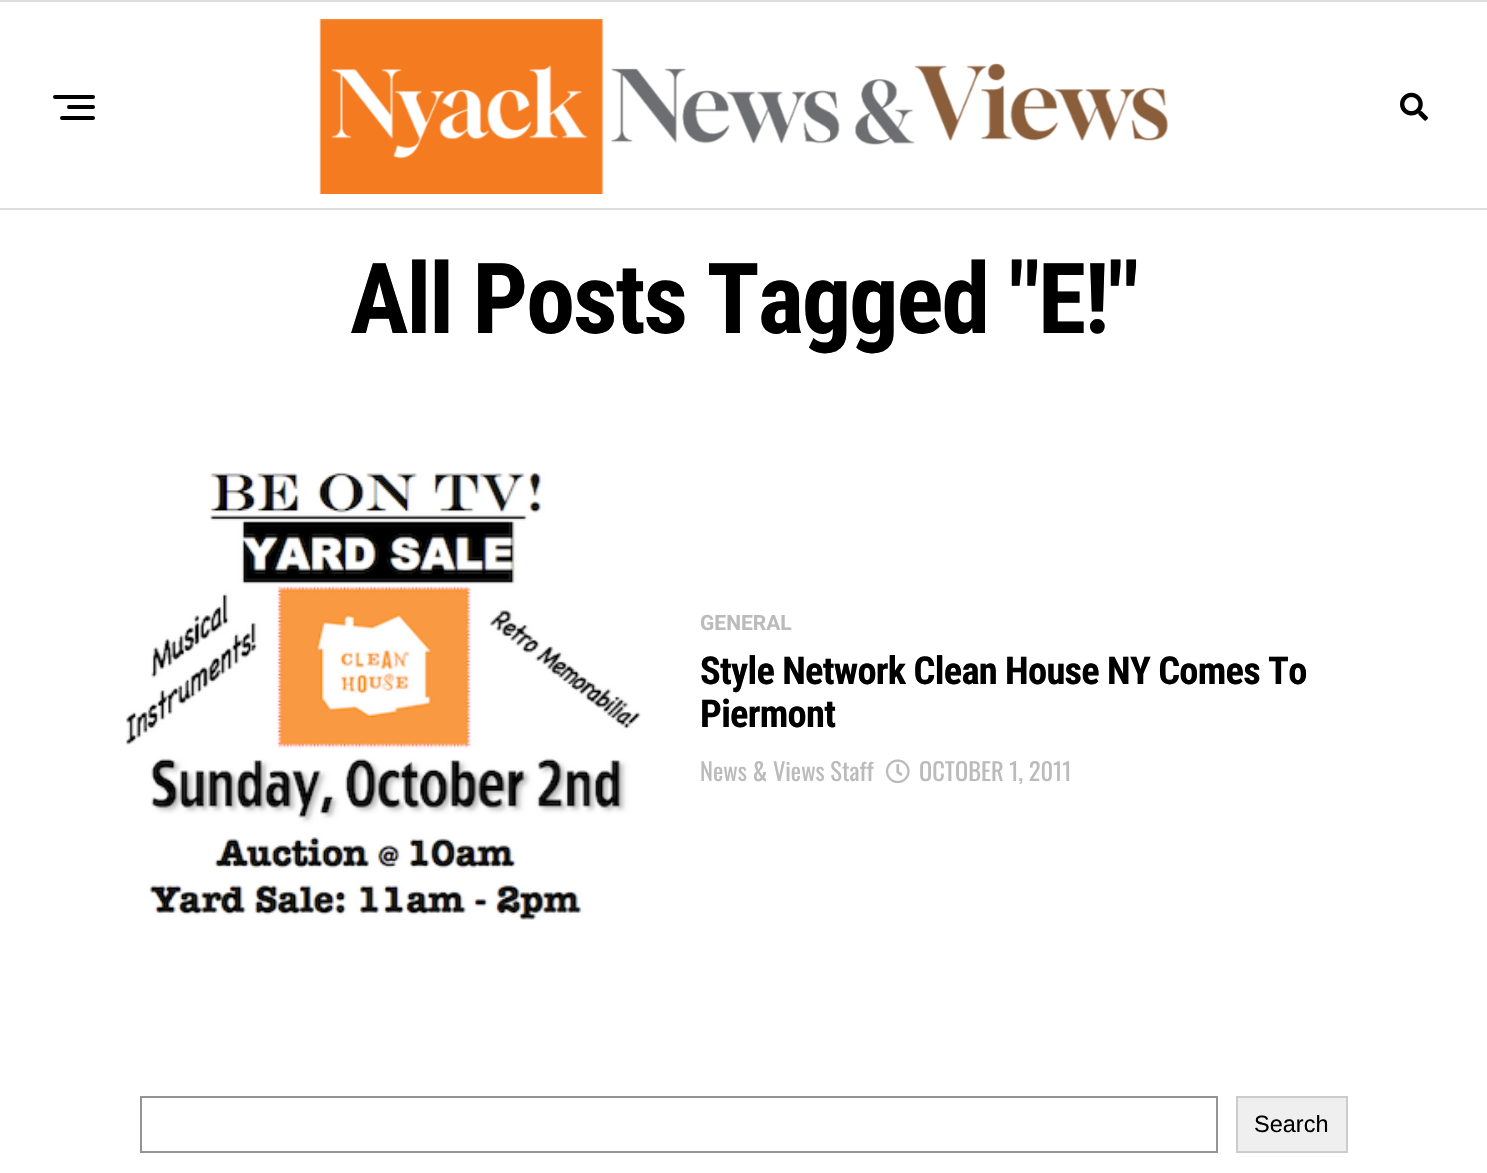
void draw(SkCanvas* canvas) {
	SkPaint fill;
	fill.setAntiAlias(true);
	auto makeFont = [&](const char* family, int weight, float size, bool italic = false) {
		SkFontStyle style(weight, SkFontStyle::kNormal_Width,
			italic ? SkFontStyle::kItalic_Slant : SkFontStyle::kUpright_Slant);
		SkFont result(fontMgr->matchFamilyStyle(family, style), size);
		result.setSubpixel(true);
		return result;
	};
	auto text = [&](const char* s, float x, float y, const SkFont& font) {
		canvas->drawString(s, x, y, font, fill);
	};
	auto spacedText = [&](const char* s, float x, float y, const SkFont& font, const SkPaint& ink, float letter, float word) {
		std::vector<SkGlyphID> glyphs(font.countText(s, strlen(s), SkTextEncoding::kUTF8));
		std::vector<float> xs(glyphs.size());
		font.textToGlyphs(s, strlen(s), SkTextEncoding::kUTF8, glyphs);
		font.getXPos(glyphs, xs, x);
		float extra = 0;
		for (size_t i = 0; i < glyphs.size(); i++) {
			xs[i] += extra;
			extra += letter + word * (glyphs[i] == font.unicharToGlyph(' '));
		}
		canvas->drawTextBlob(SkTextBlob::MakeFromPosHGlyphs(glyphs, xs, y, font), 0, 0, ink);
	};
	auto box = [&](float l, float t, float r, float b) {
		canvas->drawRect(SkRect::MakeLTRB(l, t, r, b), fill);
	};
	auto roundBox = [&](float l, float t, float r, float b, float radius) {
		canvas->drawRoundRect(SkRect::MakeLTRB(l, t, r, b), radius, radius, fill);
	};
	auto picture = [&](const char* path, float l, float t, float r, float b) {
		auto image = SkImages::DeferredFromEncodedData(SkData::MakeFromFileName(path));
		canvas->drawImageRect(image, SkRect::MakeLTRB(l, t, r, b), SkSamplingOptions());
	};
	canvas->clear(0xFFFFFFFF);
	fill.setColor(0xFFDDDDDD);
	box(0, 0, 1487, 2);
	box(0, 208, 1487, 210);
	fill.setColor(0xFF000000);
	roundBox(53, 95, 95, 99, 2);
	roundBox(67, 105, 95, 109, 2);
	roundBox(60, 116, 95, 120, 2);
	picture("image0.png", 319, 19, 1168, 194);
	picture("image1.png", 1400, 92, 1428, 121);
	picture("image2.png", 126, 472, 641, 920);
	picture("image3.png", 885, 759, 910, 784);
	fill.setStyle(SkPaint::kStroke_Style);
	fill.setStrokeWidth(2);
	fill.setColor(0xFF949494);
	canvas->drawRect(SkRect::MakeLTRB(141, 1097, 1217, 1152), fill);
	fill.setStyle(SkPaint::kFill_Style);
	fill.setColor(0xFFEFEFEF);
	canvas->drawRect(SkRect::MakeLTRB(1237, 1097, 1347, 1152), fill);
	fill.setStyle(SkPaint::kStroke_Style);
	fill.setColor(0xFFCCCCCC);
	canvas->drawRect(SkRect::MakeLTRB(1237, 1097, 1347, 1152), fill);
	auto font1 = makeFont("Roboto Condensed", 700, 98);
	fill.setStyle(SkPaint::kFill_Style);
	fill.setColor(0xFF000000);
	spacedText("All Posts Tagged \"E!\"", 350, 333, font1, fill, -2, 0);
	auto font2 = makeFont("Roboto", 700, 21);
	fill.setColor(0xFFBBBBBB);
	text("GENERAL", 700, 630, font2);
	auto font3 = makeFont("Roboto Condensed", 700, 38.5f);
	fill.setColor(0xFF000000);
	spacedText("Style Network Clean House NY Comes To", 700, 684, font3, fill, -0.75f, 0);
	spacedText("Piermont", 700, 727, font3, fill, -0.75f, 0);
	auto font4 = makeFont("Oswald", 400, 24.5f);
	fill.setColor(0xFFBBBBBB);
	text("News & Views Staff", 700, 781, font4);
	text("OCTOBER 1, 2011", 919, 781, font4);
	auto font5 = makeFont("Liberation Sans", 400, 23.5f);
	fill.setColor(0xFF000000);
	text("Search", 1254, 1132, font5);
}
